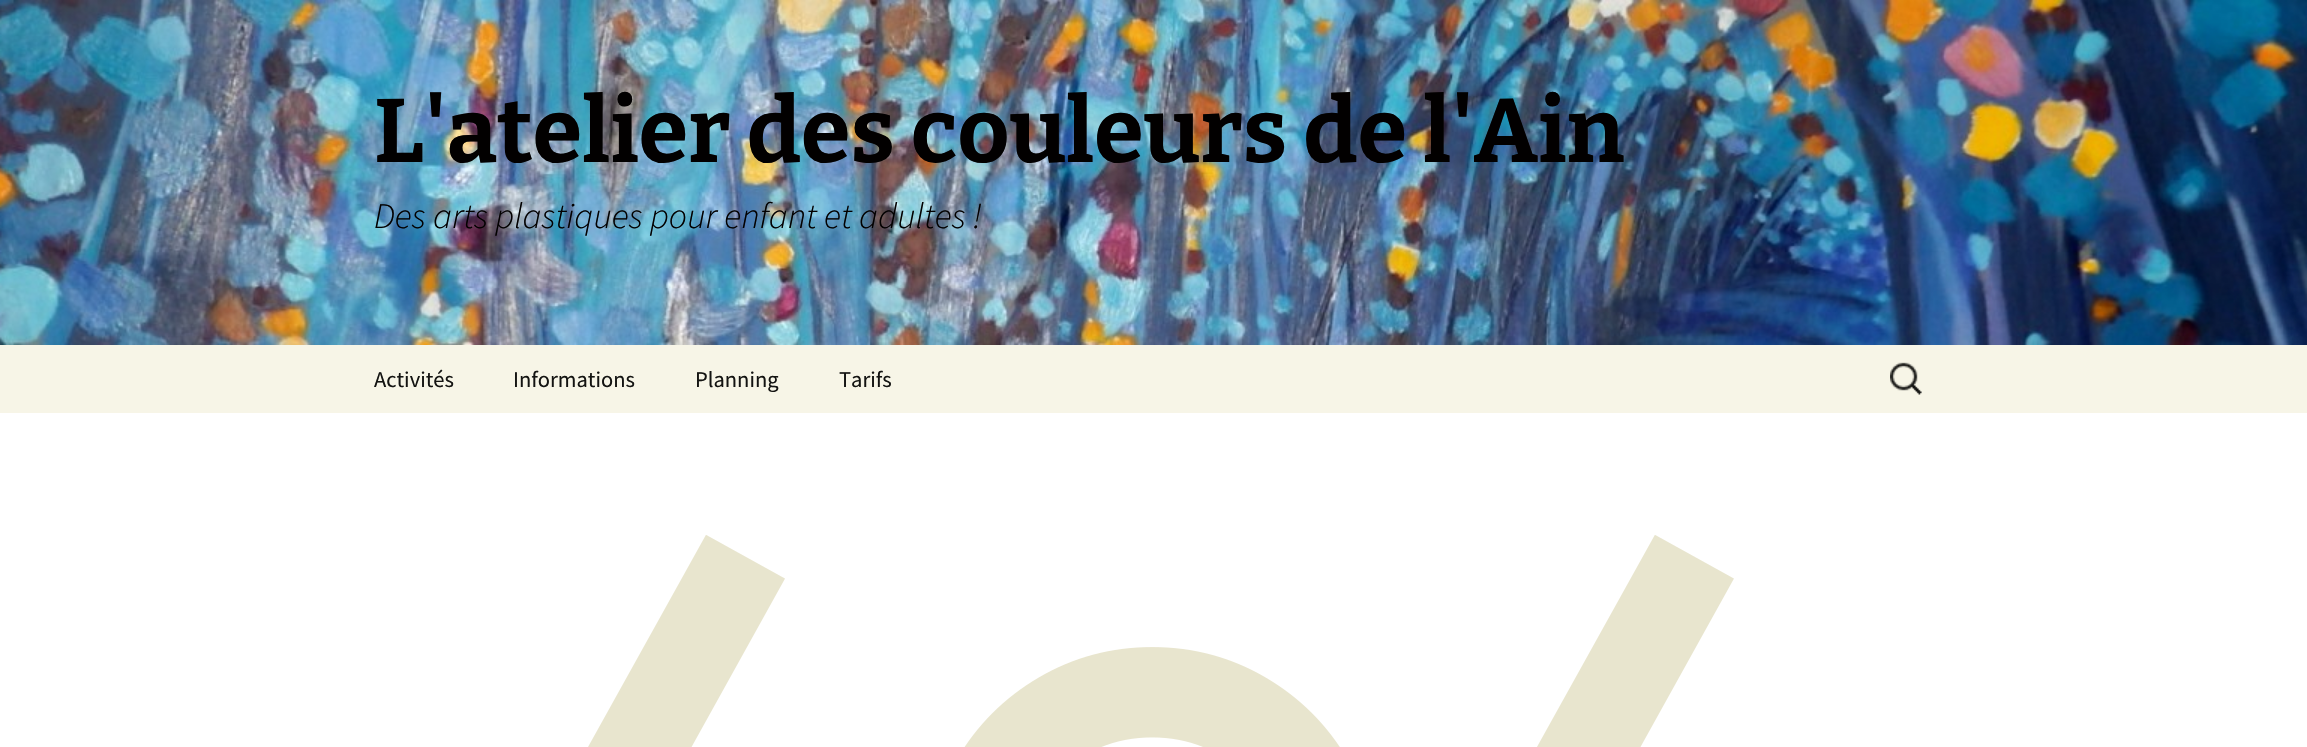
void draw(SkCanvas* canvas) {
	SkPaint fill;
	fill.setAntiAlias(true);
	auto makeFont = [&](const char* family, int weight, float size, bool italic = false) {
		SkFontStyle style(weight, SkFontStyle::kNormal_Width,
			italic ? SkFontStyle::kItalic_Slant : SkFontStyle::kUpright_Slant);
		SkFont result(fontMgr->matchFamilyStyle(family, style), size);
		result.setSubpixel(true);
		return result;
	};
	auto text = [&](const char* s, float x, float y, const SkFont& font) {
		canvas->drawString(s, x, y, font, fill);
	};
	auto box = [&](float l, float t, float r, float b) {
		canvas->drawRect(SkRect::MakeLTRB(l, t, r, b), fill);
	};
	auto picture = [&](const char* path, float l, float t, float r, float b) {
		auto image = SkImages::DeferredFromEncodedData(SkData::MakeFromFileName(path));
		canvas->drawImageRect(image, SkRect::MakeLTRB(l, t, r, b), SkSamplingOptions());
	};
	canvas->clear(0xFFFFFFFF);
	picture("image0.png", 0, 0, 2307, 345);
	fill.setColor(0xFFF7F5E7);
	box(0, 345, 2307, 413);
	picture("image1.png", 1890, 362, 1922, 395);
	picture("image2.png", 588, 535, 1734, 747);
	auto font1 = makeFont("Bitter", 700, 90);
	fill.setColor(0xFF020000);
	text("L'atelier des couleurs de l'Ain", 374, 162, font1);
	auto font2 = makeFont("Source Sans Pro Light", 300, 36, true);
	text("Des arts plastiques pour enfant et adultes !", 374, 228, font2);
	auto font3 = makeFont("Source Sans Pro", 400, 22.5f);
	fill.setColor(0xFF141412);
	text("Activités", 374, 387, font3);
	text("Informations", 513, 387, font3);
	text("Planning", 695, 387, font3);
	text("Tarifs", 839, 387, font3);
}
